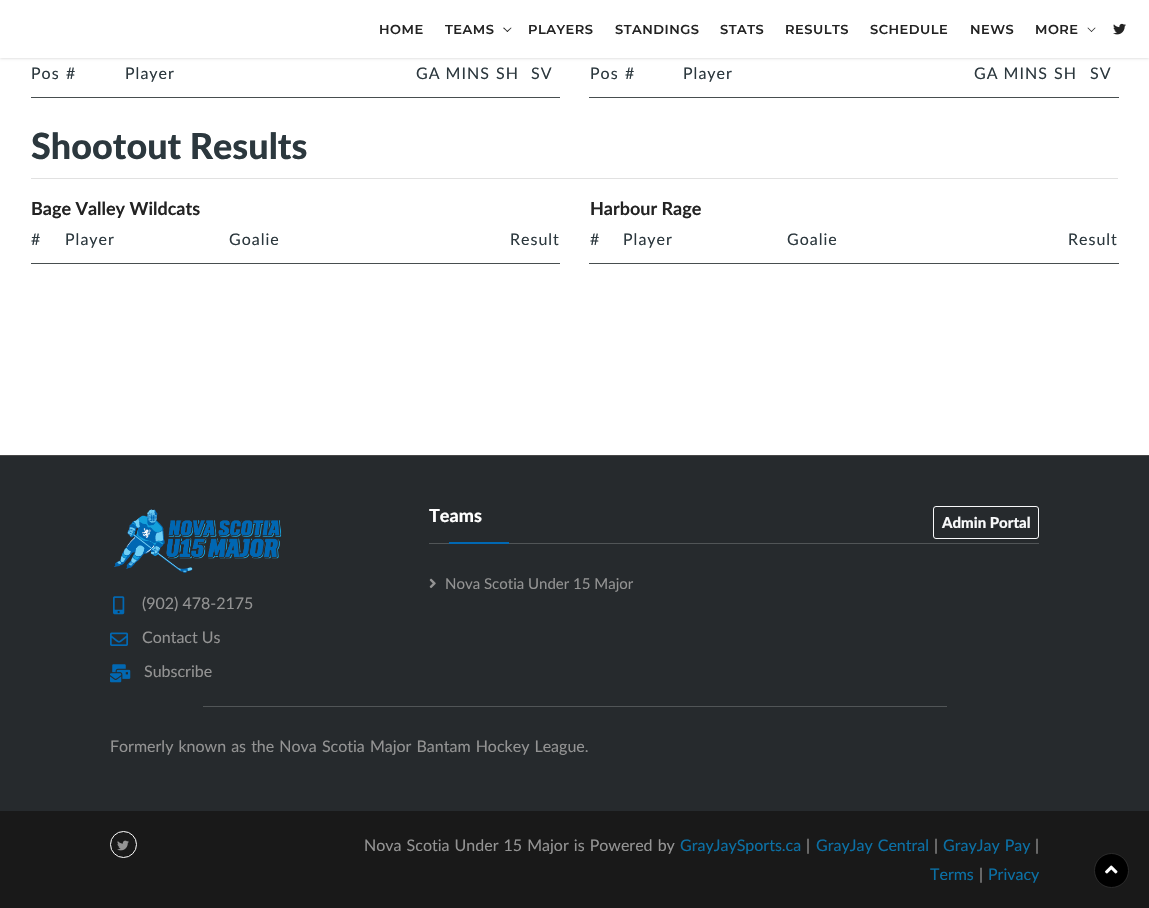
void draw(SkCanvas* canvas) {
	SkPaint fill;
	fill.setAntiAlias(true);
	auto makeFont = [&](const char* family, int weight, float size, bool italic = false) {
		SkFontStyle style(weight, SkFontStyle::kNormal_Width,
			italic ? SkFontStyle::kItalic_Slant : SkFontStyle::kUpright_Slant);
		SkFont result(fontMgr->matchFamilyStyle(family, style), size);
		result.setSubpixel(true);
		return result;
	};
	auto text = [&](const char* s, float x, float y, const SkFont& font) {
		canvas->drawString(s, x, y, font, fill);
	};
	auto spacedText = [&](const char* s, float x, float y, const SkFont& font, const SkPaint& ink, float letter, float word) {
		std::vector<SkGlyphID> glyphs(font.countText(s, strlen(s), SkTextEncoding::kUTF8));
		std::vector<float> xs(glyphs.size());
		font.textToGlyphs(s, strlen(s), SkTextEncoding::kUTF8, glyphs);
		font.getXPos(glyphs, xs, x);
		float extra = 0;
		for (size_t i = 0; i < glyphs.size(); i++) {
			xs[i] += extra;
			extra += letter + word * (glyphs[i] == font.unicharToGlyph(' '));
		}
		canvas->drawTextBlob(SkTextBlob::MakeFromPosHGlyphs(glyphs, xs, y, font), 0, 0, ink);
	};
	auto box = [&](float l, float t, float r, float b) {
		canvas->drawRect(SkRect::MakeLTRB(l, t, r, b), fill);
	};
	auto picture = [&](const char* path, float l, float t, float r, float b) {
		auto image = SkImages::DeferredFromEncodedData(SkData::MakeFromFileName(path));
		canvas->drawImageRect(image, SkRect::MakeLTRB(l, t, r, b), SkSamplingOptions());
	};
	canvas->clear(0xFFFFFFFF);
	fill.setColor(0x33000000);
	fill.setMaskFilter(SkMaskFilter::MakeBlur(kNormal_SkBlurStyle, 1.5f));
	canvas->drawRect(SkRect::MakeLTRB(0, 0, 1149, 58), fill);
	fill.setMaskFilter(nullptr);
	fill.setColor(0xFFFFFFFF);
	box(0, 0, 1149, 58);
	fill.setColor(0xFF232323);
	canvas->drawPath(SkPathBuilder().moveTo(511, 27.5f).lineTo(511.5f, 28).lineTo(507.5f, 32).lineTo(506.5f, 31.5f).close().detach(), fill);
	canvas->drawPath(SkPathBuilder().moveTo(504, 27.5f).lineTo(508, 31.5f).lineTo(507.5f, 32).lineTo(503, 28).close().detach(), fill);
	canvas->drawPath(SkPathBuilder().moveTo(1095, 27.5f).lineTo(1095.5f, 28).lineTo(1091.5f, 32).lineTo(1091, 31.5f).close().detach(), fill);
	canvas->drawPath(SkPathBuilder().moveTo(1088, 27.5f).lineTo(1092, 31.5f).lineTo(1091.5f, 32).lineTo(1087.5f, 28).close().detach(), fill);
	picture("image0.png", 1113, 23, 1126, 35);
	fill.setColor(0xFF474E4F);
	box(31, 97, 560, 98);
	box(589, 97, 1119, 98);
	fill.setColor(0xFFE1E1E1);
	box(31, 178, 1118, 179);
	fill.setColor(0xFF474E4F);
	box(31, 263, 560, 264);
	box(589, 263, 1119, 264);
	fill.setColor(0xFF262A2D);
	box(0, 456, 1149, 811);
	fill.setColor(0xFF474747);
	box(0, 455, 1149, 456);
	fill.setStyle(SkPaint::kStroke_Style);
	fill.setStrokeWidth(1);
	fill.setColor(0xFFF8F9FA);
	canvas->drawRoundRect(SkRect::MakeLTRB(933.5f, 506.5f, 1038.5f, 538.5f), 2.5f, 2.5f, fill);
	fill.setStyle(SkPaint::kFill_Style);
	fill.setColor(0xFF515557);
	box(429, 543, 1039, 544);
	fill.setColor(0xFF0168B3);
	box(449, 542, 509, 544);
	picture("image1.png", 429, 578, 436, 588);
	picture("image2.png", 114, 509, 282, 573);
	picture("image3.png", 113, 596, 125, 615);
	picture("image4.png", 110, 632, 128, 646);
	picture("image5.png", 110, 664, 131, 683);
	fill.setColor(0xFF515557);
	box(203, 706, 947, 707);
	fill.setColor(0xFF191919);
	box(0, 811, 1149, 908);
	fill.setStyle(SkPaint::kStroke_Style);
	fill.setColor(0xFFFFFFFF);
	canvas->drawCircle(123.5f, 844.5f, 13, fill);
	picture("image6.png", 117, 840, 129, 851);
	fill.setStyle(SkPaint::kFill_Style);
	fill.setColor(0xFF000000);
	canvas->drawCircle(1111.5f, 870.5f, 17, fill);
	fill.setStyle(SkPaint::kStroke_Style);
	fill.setColor(0xFF2A2A2A);
	canvas->drawCircle(1111.5f, 870.5f, 17, fill);
	picture("image7.png", 1105, 865, 1118, 874);
	auto font1 = makeFont("Montserrat", 600, 13);
	fill.setStyle(SkPaint::kFill_Style);
	fill.setColor(0xFF232323);
	spacedText("HOME", 379, 34, font1, fill, 0.5f, 0);
	spacedText("TEAMS", 445, 34, font1, fill, 0.5f, 0);
	spacedText("PLAYERS", 528, 34, font1, fill, 0.5f, 0);
	spacedText("STANDINGS", 615, 34, font1, fill, 0.5f, 0);
	spacedText("STATS", 720, 34, font1, fill, 0.5f, 0);
	spacedText("RESULTS", 785, 34, font1, fill, 0.5f, 0);
	spacedText("SCHEDULE", 870, 34, font1, fill, 0.5f, 0);
	spacedText("NEWS", 970, 34, font1, fill, 0.5f, 0);
	spacedText("MORE", 1035, 34, font1, fill, 0.5f, 0);
	auto font2 = makeFont("Lato", 400, 16);
	fill.setColor(0xFF2C383E);
	spacedText("Pos", 31, 79, font2, fill, 1, 0);
	spacedText("#", 66, 79, font2, fill, 1, 0);
	spacedText("Player", 125, 79, font2, fill, 1, 0);
	spacedText("GA MINS", 416, 79, font2, fill, 1, 0);
	spacedText("SH", 496, 79, font2, fill, 1, 0);
	spacedText("SV", 531, 79, font2, fill, 1, 0);
	spacedText("Pos", 590, 79, font2, fill, 1, 0);
	spacedText("#", 625, 79, font2, fill, 1, 0);
	spacedText("Player", 683, 79, font2, fill, 1, 0);
	spacedText("GA MINS", 974, 79, font2, fill, 1, 0);
	spacedText("SH", 1054, 79, font2, fill, 1, 0);
	spacedText("SV", 1090, 79, font2, fill, 1, 0);
	auto font3 = makeFont("Lato", 900, 36);
	text("Shootout Results", 31, 159, font3);
	auto font4 = makeFont("Lato", 700, 18);
	fill.setColor(0xFF232323);
	text("Bage Valley Wildcats", 31, 215, font4);
	fill.setColor(0xFF2C383E);
	spacedText("#", 31, 245, font2, fill, 1, 0);
	spacedText("Player", 65, 245, font2, fill, 1, 0);
	spacedText("Goalie", 229, 245, font2, fill, 1, 0);
	spacedText("Result", 510, 245, font2, fill, 1, 0);
	fill.setColor(0xFF232323);
	text("Harbour Rage", 590, 215, font4);
	fill.setColor(0xFF2C383E);
	spacedText("#", 590, 245, font2, fill, 1, 0);
	spacedText("Player", 623, 245, font2, fill, 1, 0);
	spacedText("Goalie", 787, 245, font2, fill, 1, 0);
	spacedText("Result", 1068, 245, font2, fill, 1, 0);
	auto font5 = makeFont("Lato", 900, 18);
	fill.setColor(0xFFFFFFFF);
	text("Teams", 429, 522, font5);
	auto font6 = makeFont("Lato", 900, 15);
	fill.setColor(0xFFF8F9FA);
	text("Admin Portal", 942, 528, font6);
	auto font7 = makeFont("Lato", 400, 15);
	fill.setColor(0xFF939393);
	text("Nova Scotia Under 15 Major", 445, 589, font7);
	text("(902) 478-2175", 142, 609, font2);
	text("Contact Us", 142, 643, font2);
	text("Subscribe", 144, 677, font2);
	spacedText("Formerly known as the Nova Scotia Major Bantam Hockey League.", 110, 752, font2, fill, 0, 1);
	spacedText("Nova Scotia Under 15 Major is Powered by", 364, 851, font2, fill, 0, 1);
	fill.setColor(0xFF0B70A5);
	text("GrayJaySports.ca", 680, 851, font2);
	fill.setColor(0xFF939393);
	text("|", 806, 851, font2);
	fill.setColor(0xFF0B70A5);
	spacedText("GrayJay Central", 816, 851, font2, fill, 0, 1);
	fill.setColor(0xFF939393);
	text("|", 934, 851, font2);
	fill.setColor(0xFF0B70A5);
	spacedText("GrayJay Pay", 943, 851, font2, fill, 0, 1);
	fill.setColor(0xFF939393);
	text("|", 1035, 851, font2);
	fill.setColor(0xFF0B70A5);
	text("Terms", 930, 880, font2);
	fill.setColor(0xFF939393);
	text("|", 979, 880, font2);
	fill.setColor(0xFF0B70A5);
	text("Privacy", 988, 880, font2);
}
